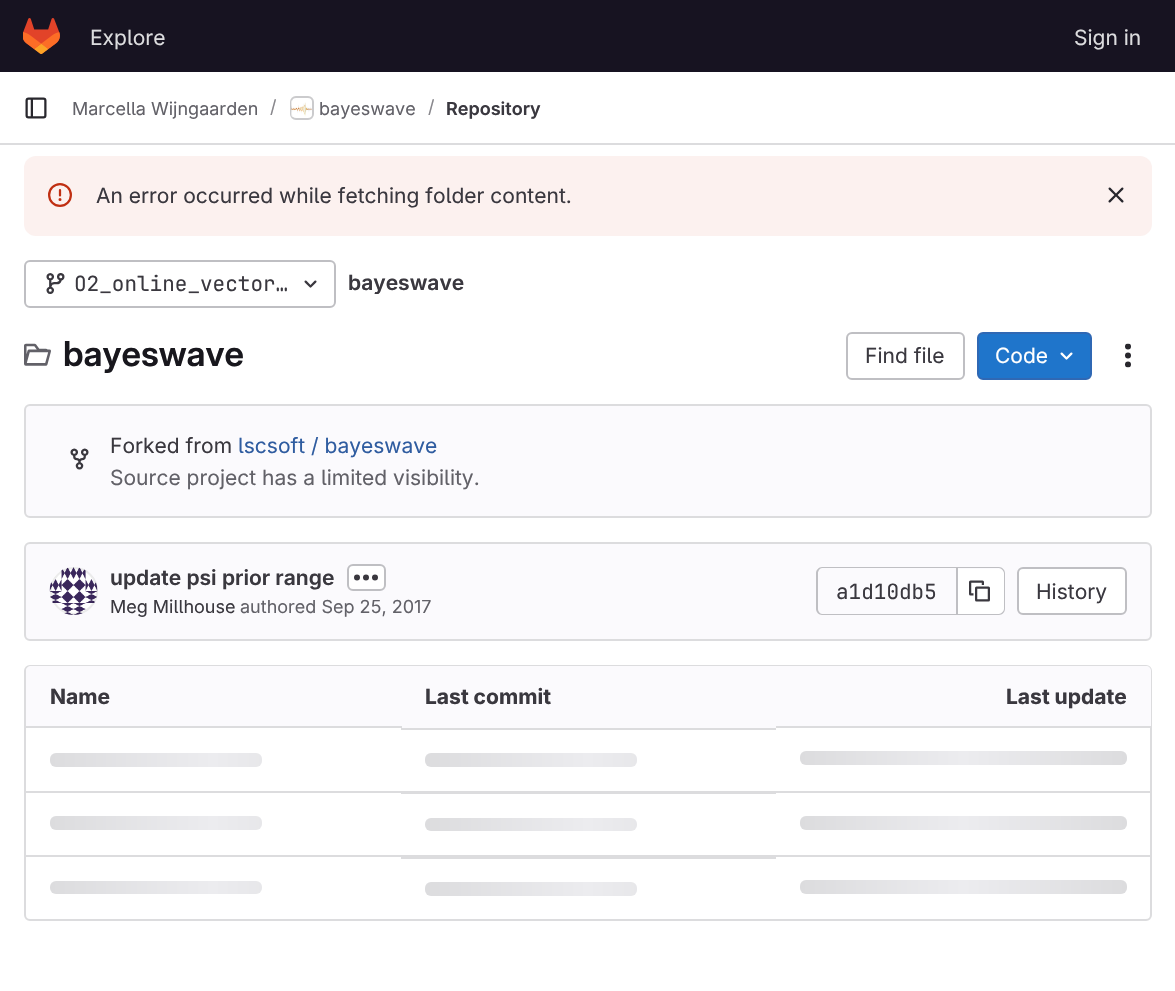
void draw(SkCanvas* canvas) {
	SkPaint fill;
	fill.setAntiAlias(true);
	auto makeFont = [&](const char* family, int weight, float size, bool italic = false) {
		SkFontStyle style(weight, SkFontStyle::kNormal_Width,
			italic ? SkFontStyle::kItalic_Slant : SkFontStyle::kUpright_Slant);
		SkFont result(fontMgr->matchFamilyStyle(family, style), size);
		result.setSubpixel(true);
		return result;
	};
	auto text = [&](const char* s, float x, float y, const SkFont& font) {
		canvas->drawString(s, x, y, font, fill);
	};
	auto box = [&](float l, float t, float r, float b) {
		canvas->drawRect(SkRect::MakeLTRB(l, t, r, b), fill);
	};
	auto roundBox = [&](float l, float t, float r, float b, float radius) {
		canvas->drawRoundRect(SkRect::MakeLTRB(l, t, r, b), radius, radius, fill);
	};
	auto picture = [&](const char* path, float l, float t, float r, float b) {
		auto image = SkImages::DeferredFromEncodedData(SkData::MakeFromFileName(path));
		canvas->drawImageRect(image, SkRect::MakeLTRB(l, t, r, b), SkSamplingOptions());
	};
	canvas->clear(0xFFFFFFFF);
	fill.setColor(0xFF171321);
	box(0, 0, 1175, 72);
	picture("image0.png", 23, 18, 60, 54);
	fill.setColor(0xFFDCDCDE);
	box(0, 143, 1175, 145);
	picture("image1.png", 25, 97, 47, 119);
	fill.setStyle(SkPaint::kStroke_Style);
	fill.setStrokeWidth(2);
	canvas->drawRoundRect(SkRect::MakeLTRB(291, 97, 313, 119), 5, 5, fill);
	picture("image2.png", 291, 100, 312, 117);
	fill.setColor(0x14050506);
	canvas->drawRoundRect(SkRect::MakeLTRB(291, 97, 313, 119), 5, 5, fill);
	fill.setStyle(SkPaint::kFill_Style);
	fill.setColor(0xFFFCF1EF);
	roundBox(24, 156, 1152, 236, 12);
	picture("image3.png", 48, 183, 72, 207);
	picture("image4.png", 1108, 187, 1124, 203);
	fill.setStyle(SkPaint::kStroke_Style);
	fill.setColor(0xFFBFBFC3);
	canvas->drawRoundRect(SkRect::MakeLTRB(25, 261, 335, 307), 5, 5, fill);
	picture("image5.png", 46, 273, 65, 294);
	picture("image6.png", 304, 280, 317, 288);
	picture("image7.png", 24, 343, 51, 366);
	canvas->drawRoundRect(SkRect::MakeLTRB(847, 333, 964, 379), 5, 5, fill);
	fill.setStyle(SkPaint::kFill_Style);
	fill.setColor(0xFF1F75CB);
	canvas->drawRoundRect(SkRect::MakeLTRB(978, 333, 1091, 379), 5, 5, fill);
	fill.setStyle(SkPaint::kStroke_Style);
	fill.setColor(0xFF2F68B4);
	canvas->drawRoundRect(SkRect::MakeLTRB(978, 333, 1091, 379), 5, 5, fill);
	picture("image8.png", 1060, 352, 1073, 360);
	picture("image9.png", 1125, 343, 1131, 368);
	fill.setStyle(SkPaint::kFill_Style);
	fill.setColor(0xFFFBFAFD);
	canvas->drawRoundRect(SkRect::MakeLTRB(25, 405, 1151, 517), 5, 5, fill);
	fill.setStyle(SkPaint::kStroke_Style);
	fill.setColor(0xFFDCDCDE);
	canvas->drawRoundRect(SkRect::MakeLTRB(25, 405, 1151, 517), 5, 5, fill);
	picture("image10.png", 70, 448, 89, 470);
	fill.setStyle(SkPaint::kFill_Style);
	fill.setColor(0xFFFBFAFD);
	canvas->drawRoundRect(SkRect::MakeLTRB(25, 543, 1151, 640), 5, 5, fill);
	fill.setStyle(SkPaint::kStroke_Style);
	fill.setColor(0xFFDCDCDE);
	canvas->drawRoundRect(SkRect::MakeLTRB(25, 543, 1151, 640), 5, 5, fill);
	picture("image11.png", 49, 567, 98, 615);
	fill.setColor(0x14050506);
	canvas->drawCircle(74, 591, 23, fill);
	fill.setStyle(SkPaint::kFill_Style);
	fill.setColor(0xFFFFFFFF);
	canvas->drawRoundRect(SkRect::MakeLTRB(348, 565, 385, 590), 5, 5, fill);
	fill.setStyle(SkPaint::kStroke_Style);
	fill.setColor(0xFFBFBFC3);
	canvas->drawRoundRect(SkRect::MakeLTRB(348, 565, 385, 590), 5, 5, fill);
	picture("image12.png", 354, 574, 378, 581);
	fill.setStyle(SkPaint::kFill_Style);
	canvas->drawPath(SkPathBuilder(SkPathFillType::kEvenOdd).moveTo(822, 567).lineTo(956, 567).lineTo(956, 615).lineTo(822, 615).cubicTo(819, 615, 816, 612, 816, 609).lineTo(816, 573).cubicTo(816, 570, 819, 567, 822, 567).close().moveTo(822, 568).lineTo(956, 568).lineTo(956, 614).lineTo(822, 614).cubicTo(820, 614, 818, 611, 818, 609).lineTo(818, 573).cubicTo(818, 571, 820, 568, 822, 568).close().detach(), fill);
	fill.setColor(0xFFFFFFFF);
	canvas->drawPath(SkPathBuilder().moveTo(957, 569).lineTo(999, 569).cubicTo(1002, 569, 1004, 571, 1004, 574).lineTo(1004, 609).cubicTo(1004, 612, 1002, 614, 999, 614).lineTo(957, 614).close().detach(), fill);
	fill.setColor(0xFFBFBFC3);
	canvas->drawPath(SkPathBuilder(SkPathFillType::kEvenOdd).moveTo(957, 567).lineTo(999, 567).cubicTo(1002, 567, 1005, 570, 1005, 573).lineTo(1005, 609).cubicTo(1005, 612, 1002, 615, 999, 615).lineTo(957, 615).close().moveTo(957, 568).lineTo(999, 568).cubicTo(1001, 568, 1004, 571, 1004, 573).lineTo(1004, 609).cubicTo(1004, 611, 1001, 614, 999, 614).lineTo(957, 614).close().detach(), fill);
	box(956, 567, 958, 615);
	picture("image13.png", 969, 580, 990, 602);
	fill.setColor(0xFFFFFFFF);
	canvas->drawRoundRect(SkRect::MakeLTRB(1018, 568, 1126, 614), 5, 5, fill);
	fill.setStyle(SkPaint::kStroke_Style);
	fill.setColor(0xFFBFBFC3);
	canvas->drawRoundRect(SkRect::MakeLTRB(1018, 568, 1126, 614), 5, 5, fill);
	fill.setColor(0xFFDCDCDE);
	canvas->drawRoundRect(SkRect::MakeLTRB(25, 666, 1151, 920), 5, 5, fill);
	fill.setStyle(SkPaint::kFill_Style);
	fill.setColor(0xFFFBFAFD);
	canvas->drawPath(SkPathBuilder().moveTo(31, 666).lineTo(401, 666).lineTo(401, 728).lineTo(26, 728).lineTo(26, 671).cubicTo(26, 668, 28, 666, 31, 666).close().detach(), fill);
	box(401, 666, 776, 728);
	canvas->drawPath(SkPathBuilder().moveTo(776, 666).lineTo(1146, 666).cubicTo(1149, 666, 1151, 668, 1151, 671).lineTo(1151, 728).lineTo(776, 728).close().detach(), fill);
	fill.setColor(0xFFDCDCDE);
	box(26, 791, 1151, 793);
	box(26, 726, 402, 728);
	{
		const SkColor colors[] = {0xFFDCDCDE, 0xFFECECEF, 0xFFDCDCDE};
		const float stops[] = {0, 0.5f, 1};
		const SkPoint ends[] = {{50, 753}, {376, 753}};
		fill.setShader(SkGradientShader::MakeLinear(ends, colors, stops, 3, SkTileMode::kClamp));
		fill.setAlpha(255);
	}
	roundBox(50, 753, 262, 767, 6);
	fill.setShader(nullptr);
	fill.setColor(0xFFDCDCDE);
	box(401, 728, 776, 730);
	{
		const SkColor colors[] = {0xFFDCDCDE, 0xFFECECEF, 0xFFDCDCDE};
		const float stops[] = {0, 0.5f, 1};
		const SkPoint ends[] = {{425, 753}, {751, 753}};
		fill.setShader(SkGradientShader::MakeLinear(ends, colors, stops, 3, SkTileMode::kClamp));
		fill.setAlpha(255);
	}
	roundBox(425, 753, 637, 767, 6);
	fill.setShader(nullptr);
	fill.setColor(0xFFDCDCDE);
	box(776, 726, 1151, 728);
	{
		const SkColor colors[] = {0xFFDCDCDE, 0xFFECECEF, 0xFFDCDCDE};
		const float stops[] = {0, 0.5f, 1};
		const SkPoint ends[] = {{800, 751}, {1127, 751}};
		fill.setShader(SkGradientShader::MakeLinear(ends, colors, stops, 3, SkTileMode::kClamp));
		fill.setAlpha(255);
	}
	roundBox(800, 751, 1127, 765, 6);
	fill.setShader(nullptr);
	fill.setColor(0xFFDCDCDE);
	box(26, 855, 1151, 857);
	{
		const SkColor colors[] = {0xFFDCDCDE, 0xFFECECEF, 0xFFDCDCDE};
		const float stops[] = {0, 0.5f, 1};
		const SkPoint ends[] = {{50, 816}, {376, 816}};
		fill.setShader(SkGradientShader::MakeLinear(ends, colors, stops, 3, SkTileMode::kClamp));
		fill.setAlpha(255);
	}
	roundBox(50, 816, 262, 830, 6);
	fill.setShader(nullptr);
	fill.setColor(0xFFDCDCDE);
	box(401, 793, 776, 794);
	{
		const SkColor colors[] = {0xFFDCDCDE, 0xFFECECEF, 0xFFDCDCDE};
		const float stops[] = {0, 0.5f, 1};
		const SkPoint ends[] = {{425, 818}, {751, 818}};
		fill.setShader(SkGradientShader::MakeLinear(ends, colors, stops, 3, SkTileMode::kClamp));
		fill.setAlpha(255);
	}
	roundBox(425, 818, 637, 831, 6);
	{
		const SkColor colors[] = {0xFFDCDCDE, 0xFFECECEF, 0xFFDCDCDE};
		const float stops[] = {0, 0.5f, 1};
		const SkPoint ends[] = {{800, 816}, {1127, 816}};
		fill.setShader(SkGradientShader::MakeLinear(ends, colors, stops, 3, SkTileMode::kClamp));
		fill.setAlpha(255);
	}
	roundBox(800, 816, 1127, 830, 6);
	{
		const SkColor colors[] = {0xFFDCDCDE, 0xFFECECEF, 0xFFDCDCDE};
		const float stops[] = {0, 0.5f, 1};
		const SkPoint ends[] = {{50, 881}, {376, 881}};
		fill.setShader(SkGradientShader::MakeLinear(ends, colors, stops, 3, SkTileMode::kClamp));
		fill.setAlpha(255);
	}
	roundBox(50, 881, 262, 894, 6);
	fill.setShader(nullptr);
	fill.setColor(0xFFDCDCDE);
	box(401, 857, 776, 859);
	{
		const SkColor colors[] = {0xFFDCDCDE, 0xFFECECEF, 0xFFDCDCDE};
		const float stops[] = {0, 0.5f, 1};
		const SkPoint ends[] = {{425, 882}, {751, 882}};
		fill.setShader(SkGradientShader::MakeLinear(ends, colors, stops, 3, SkTileMode::kClamp));
		fill.setAlpha(255);
	}
	roundBox(425, 882, 637, 896, 6);
	{
		const SkColor colors[] = {0xFFDCDCDE, 0xFFECECEF, 0xFFDCDCDE};
		const float stops[] = {0, 0.5f, 1};
		const SkPoint ends[] = {{800, 880}, {1127, 880}};
		fill.setShader(SkGradientShader::MakeLinear(ends, colors, stops, 3, SkTileMode::kClamp));
		fill.setAlpha(255);
	}
	roundBox(800, 880, 1127, 894, 6);
	auto font1 = makeFont("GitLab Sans", 400, 21);
	fill.setShader(nullptr);
	fill.setColor(0xFFDCDCDE);
	text("Explore", 90, 45, font1);
	text("Sign in", 1074, 45, font1);
	auto font2 = makeFont("GitLab Sans", 400, 18);
	fill.setColor(0xFF626168);
	text("Marcella Wijngaarden", 72, 115, font2);
	fill.setColor(0xFF89888D);
	text("/", 270, 113, font2);
	fill.setColor(0xFF626168);
	text("bayeswave", 319, 115, font2);
	fill.setColor(0xFF89888D);
	text("/", 428, 113, font2);
	auto font3 = makeFont("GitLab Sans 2", 600, 18);
	fill.setColor(0xFF3A383F);
	text("Repository", 446, 115, font3);
	text("An error occurred while fetching folder content.", 96, 203, font1);
	auto font4 = makeFont("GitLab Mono", 400, 21);
	text("O2_online_vector…", 74, 291, font4);
	canvas->save();
	canvas->clipPath(SkPathBuilder().moveTo(354, 269).lineTo(459, 269).cubicTo(462.5f, 269, 465, 271.5f, 465, 275).lineTo(465, 288).cubicTo(465, 291.5f, 462.5f, 294, 459, 294).lineTo(354, 294).cubicTo(350.5f, 294, 348, 291.5f, 348, 288).lineTo(348, 275).cubicTo(348, 271.5f, 350.5f, 269, 354, 269).close().detach(), true);
	auto font5 = makeFont("GitLab Sans 2", 600, 21);
	text("bayeswave", 348, 290, font5);
	canvas->restore();
	auto font6 = makeFont("GitLab Sans", 600, 34.5f);
	fill.setColor(0xFF18171D);
	text("bayeswave", 63, 366, font6);
	fill.setColor(0xFF3A383F);
	text("Find file", 865, 363, font1);
	fill.setColor(0xFFFFFFFF);
	text("Code", 995, 363, font1);
	fill.setColor(0xFF3A383F);
	text("Forked from", 110, 453, font1);
	fill.setColor(0xFF2F5CA0);
	text("lscsoft / bayeswave", 238, 453, font1);
	fill.setColor(0xFF626168);
	text("Source project has a limited visibility.", 110, 485, font1);
	fill.setColor(0xFF3A383F);
	text("update psi prior range", 110, 585, font5);
	text("Meg Millhouse", 110, 613, font2);
	fill.setColor(0xFF626168);
	text("authored Sep 25, 2017", 240, 613, font2);
	fill.setColor(0xFF3A383F);
	text("a1d10db5", 836, 599, font4);
	text("History", 1036, 599, font1);
	auto font7 = makeFont("GitLab Sans", 700, 21);
	text("Name", 50, 704, font7);
	text("Last commit", 425, 704, font7);
	text("Last update", 1006, 704, font7);
}
